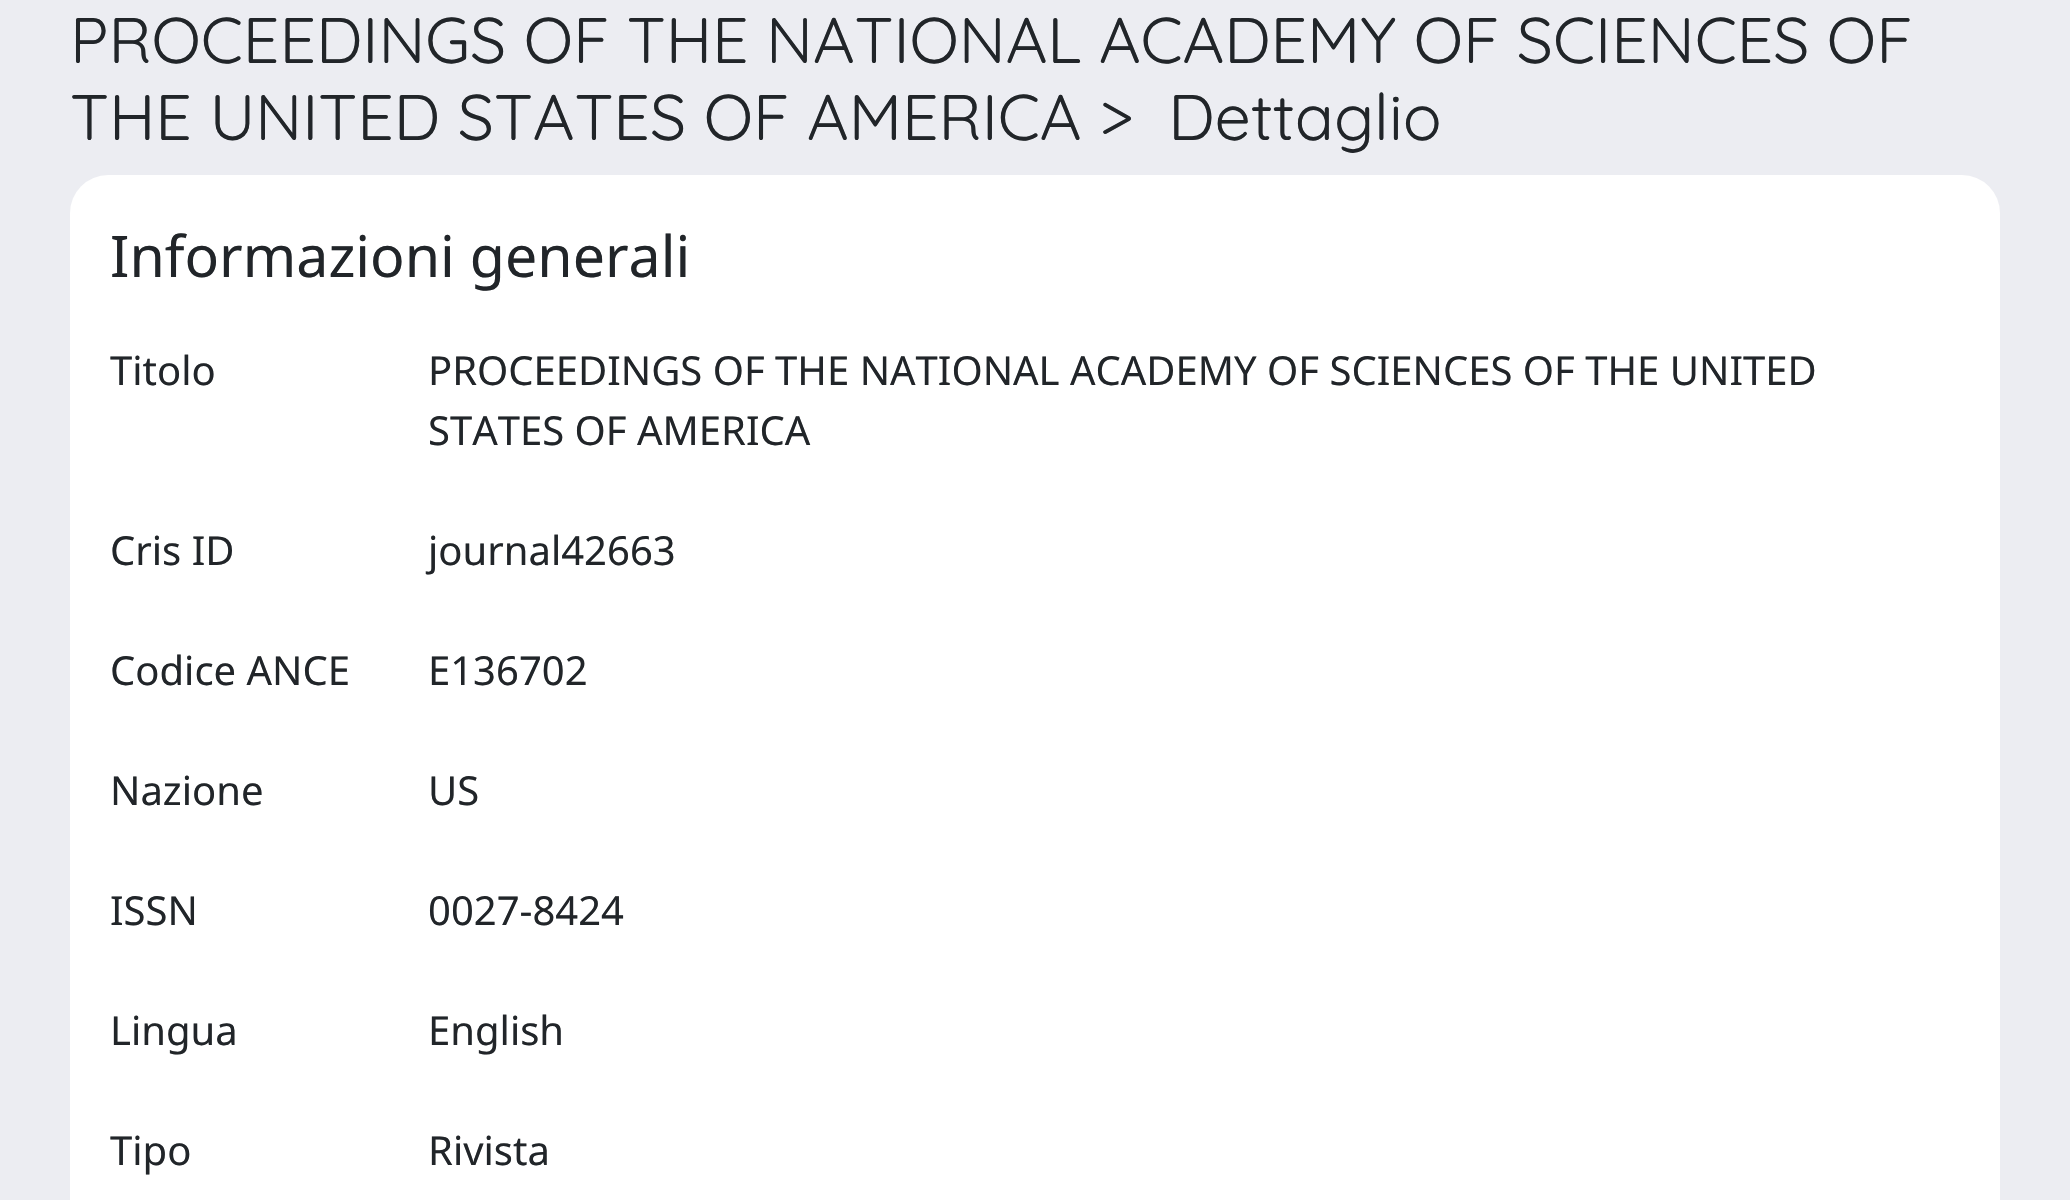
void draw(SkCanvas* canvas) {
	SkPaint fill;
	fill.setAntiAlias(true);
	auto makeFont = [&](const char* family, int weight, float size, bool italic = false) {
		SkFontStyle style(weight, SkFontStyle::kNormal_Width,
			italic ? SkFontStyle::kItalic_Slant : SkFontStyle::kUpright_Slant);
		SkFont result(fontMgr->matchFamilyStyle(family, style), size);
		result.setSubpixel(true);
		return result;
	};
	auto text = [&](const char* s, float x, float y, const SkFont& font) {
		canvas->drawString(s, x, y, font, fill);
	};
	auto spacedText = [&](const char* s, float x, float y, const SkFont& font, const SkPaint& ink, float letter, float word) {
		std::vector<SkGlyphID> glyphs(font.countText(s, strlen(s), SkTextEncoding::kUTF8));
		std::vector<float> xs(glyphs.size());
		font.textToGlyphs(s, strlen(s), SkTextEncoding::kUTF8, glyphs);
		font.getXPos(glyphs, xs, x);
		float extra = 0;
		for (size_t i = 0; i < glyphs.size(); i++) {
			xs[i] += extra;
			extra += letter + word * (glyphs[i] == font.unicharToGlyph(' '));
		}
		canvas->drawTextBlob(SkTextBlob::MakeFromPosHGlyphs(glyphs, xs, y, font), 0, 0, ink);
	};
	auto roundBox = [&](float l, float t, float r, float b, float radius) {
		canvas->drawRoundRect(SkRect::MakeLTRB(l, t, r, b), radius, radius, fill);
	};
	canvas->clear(0xFFECEDF2);
	fill.setColor(0xFFFFFFFF);
	roundBox(70, 175, 2000, 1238, 38);
	auto font1 = makeFont("Quicksand", 400, 64.4f);
	fill.setColor(0xFF212529);
	spacedText("PROCEEDINGS OF THE NATIONAL ACADEMY OF SCIENCES OF", 70, 63, font1, fill, 0, -0.25f);
	text("THE UNITED STATES OF AMERICA >  Dettaglio", 70, 140, font1);
	auto font2 = makeFont("Noto Sans", 400, 57.25f);
	text("Informazioni generali", 110, 277, font2);
	auto font3 = makeFont("Noto Sans", 400, 40);
	text("Titolo", 110, 385, font3);
	text("PROCEEDINGS OF THE NATIONAL ACADEMY OF SCIENCES OF THE UNITED", 428, 385, font3);
	text("STATES OF AMERICA", 428, 445, font3);
	text("Cris ID", 110, 565, font3);
	text("journal42663", 428, 565, font3);
	text("Codice ANCE", 110, 685, font3);
	text("E136702", 428, 685, font3);
	text("Nazione", 110, 805, font3);
	text("US", 428, 805, font3);
	text("ISSN", 110, 925, font3);
	text("0027-8424", 428, 925, font3);
	text("Lingua", 110, 1045, font3);
	text("English", 428, 1045, font3);
	text("Tipo", 110, 1165, font3);
	text("Rivista", 428, 1165, font3);
}
